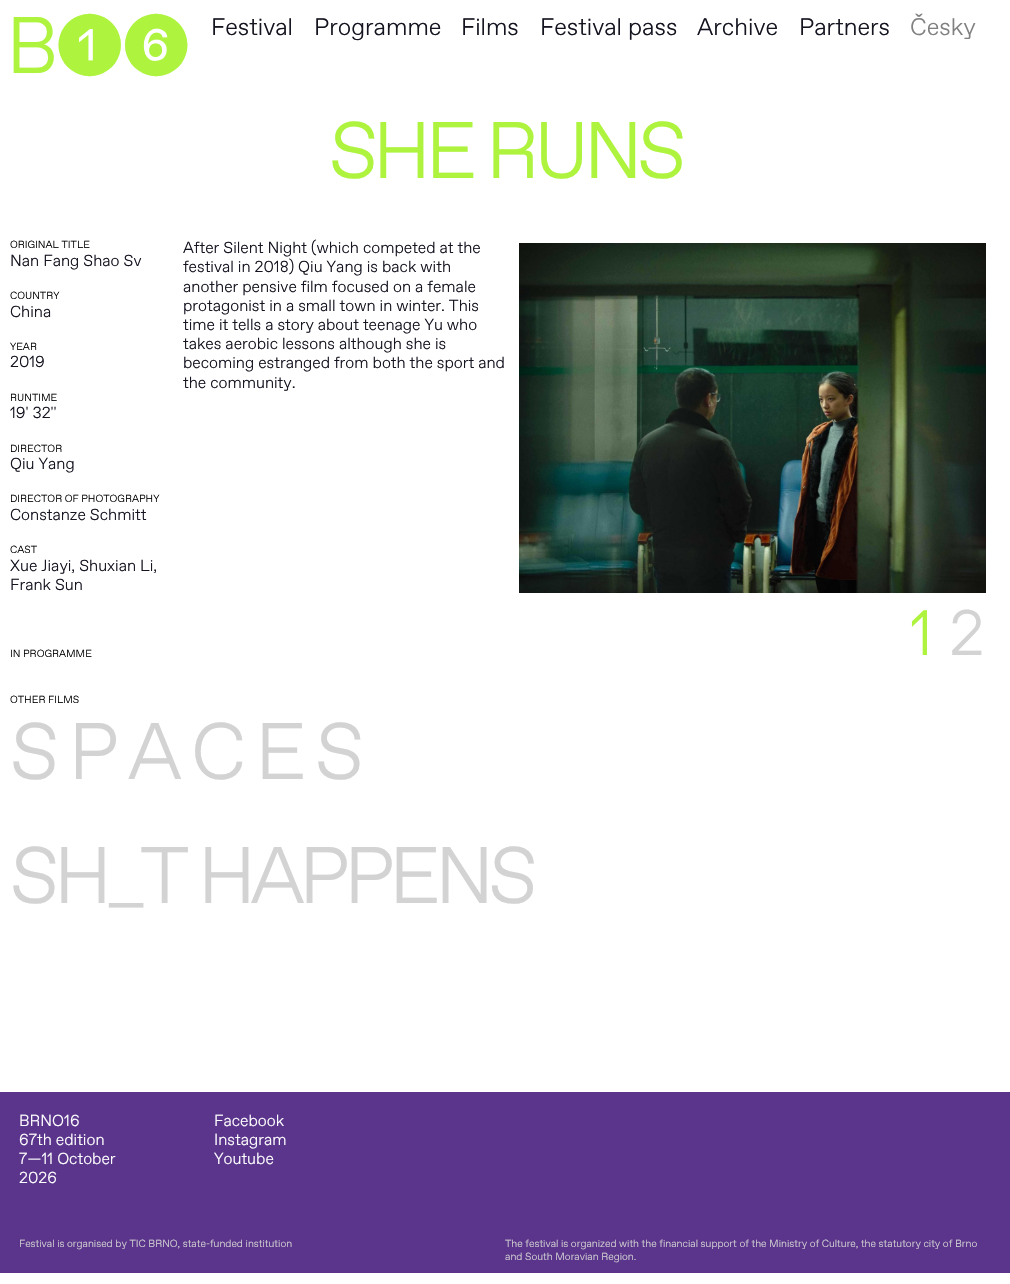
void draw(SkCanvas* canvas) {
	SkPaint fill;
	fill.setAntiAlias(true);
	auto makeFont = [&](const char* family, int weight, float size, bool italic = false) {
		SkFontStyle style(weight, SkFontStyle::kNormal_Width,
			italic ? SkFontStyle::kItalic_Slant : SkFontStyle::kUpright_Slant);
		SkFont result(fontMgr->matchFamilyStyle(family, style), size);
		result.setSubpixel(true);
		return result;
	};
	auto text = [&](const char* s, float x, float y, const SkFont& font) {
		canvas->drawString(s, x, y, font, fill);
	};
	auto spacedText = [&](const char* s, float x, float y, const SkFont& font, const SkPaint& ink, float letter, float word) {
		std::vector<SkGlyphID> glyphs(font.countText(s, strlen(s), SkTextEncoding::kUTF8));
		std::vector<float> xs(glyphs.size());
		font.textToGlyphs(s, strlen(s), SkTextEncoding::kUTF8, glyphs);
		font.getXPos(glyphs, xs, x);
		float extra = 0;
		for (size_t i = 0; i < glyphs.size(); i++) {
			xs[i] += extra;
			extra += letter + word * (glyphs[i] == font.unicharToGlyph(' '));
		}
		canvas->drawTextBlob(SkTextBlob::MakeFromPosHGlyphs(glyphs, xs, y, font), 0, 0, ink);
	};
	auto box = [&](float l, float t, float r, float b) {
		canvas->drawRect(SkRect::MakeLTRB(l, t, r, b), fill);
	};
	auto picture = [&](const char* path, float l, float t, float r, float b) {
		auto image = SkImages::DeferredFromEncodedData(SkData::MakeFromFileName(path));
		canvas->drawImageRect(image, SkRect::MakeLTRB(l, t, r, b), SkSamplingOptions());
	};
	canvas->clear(0xFFFFFFFF);
	picture("image0.png", 519, 243, 986, 593);
	fill.setColor(0xFF5B358C);
	box(0, 1092, 1010, 1273);
	auto font1 = makeFont("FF", 300, 80);
	fill.setColor(0xFFAEF33E);
	spacedText("B➊➏", 6, 73, font1, fill, -4, 0);
	auto font2 = makeFont("FF", 300, 24);
	fill.setColor(0xFF151521);
	text("Festival", 211, 35, font2);
	text("Programme", 314, 35, font2);
	text("Films", 461, 35, font2);
	text("Festival pass", 540, 35, font2);
	text("Archive", 697, 35, font2);
	text("Partners", 799, 35, font2);
	fill.setColor(0xFF808080);
	text("Česky", 910, 35, font2);
	fill.setColor(0xFFAEF33E);
	spacedText("SHE RUNS", 329, 178, font1, fill, -5.6f, 0);
	auto font3 = makeFont("FF", 300, 10.4f);
	fill.setColor(0xFF000000);
	text("ORIGINAL TITLE", 10, 248, font3);
	auto font4 = makeFont("FF", 300, 16);
	fill.setColor(0xFF151521);
	text("Nan Fang Shao Sv", 10, 266, font4);
	fill.setColor(0xFF000000);
	text("COUNTRY", 10, 299, font3);
	fill.setColor(0xFF151521);
	text("China", 10, 317, font4);
	fill.setColor(0xFF000000);
	text("YEAR", 10, 350, font3);
	fill.setColor(0xFF151521);
	text("2019", 10, 367, font4);
	fill.setColor(0xFF000000);
	text("RUNTIME", 10, 401, font3);
	fill.setColor(0xFF151521);
	text("19' 32''", 10, 418, font4);
	fill.setColor(0xFF000000);
	text("DIRECTOR", 10, 452, font3);
	fill.setColor(0xFF151521);
	text("Qiu Yang", 10, 469, font4);
	fill.setColor(0xFF000000);
	text("DIRECTOR OF PHOTOGRAPHY", 10, 502, font3);
	fill.setColor(0xFF151521);
	text("Constanze Schmitt", 10, 520, font4);
	fill.setColor(0xFF000000);
	text("CAST", 10, 553, font3);
	fill.setColor(0xFF151521);
	text("Xue Jiayi, Shuxian Li,", 10, 571, font4);
	text("Frank Sun", 10, 590, font4);
	text("After Silent Night (which competed at the", 183, 253, font4);
	text("festival in 2018) Qiu Yang is back with", 183, 272, font4);
	text("another pensive film focused on a female", 183, 292, font4);
	text("protagonist in a small town in winter. This", 183, 311, font4);
	text("time it tells a story about teenage Yu who", 183, 330, font4);
	text("takes aerobic lessons although she is", 183, 349, font4);
	text("becoming estranged from both the sport and", 183, 368, font4);
	text("the community.", 183, 388, font4);
	fill.setColor(0xFF000000);
	text("IN PROGRAMME", 10, 657, font3);
	auto font5 = makeFont("FF", 300, 64);
	fill.setColor(0xFFAEF33E);
	text("1", 910, 655, font5);
	fill.setColor(0xFFD3D3D3);
	text("2", 949, 655, font5);
	fill.setColor(0xFF000000);
	text("OTHER FILMS", 10, 703, font3);
	fill.setColor(0xFFD3D3D3);
	spacedText("S P A C E S", 10, 779, font1, fill, -5.6f, 0);
	spacedText("SH_T HAPPENS", 10, 903, font1, fill, -5.6f, 0);
	fill.setColor(0xFFFFFFFF);
	text("BRNO16", 19, 1126, font4);
	text("67th edition", 19, 1145, font4);
	text("7—11 October", 19, 1164, font4);
	text("2026", 19, 1183, font4);
	text("Facebook", 214, 1126, font4);
	text("Instagram", 214, 1145, font4);
	text("Youtube", 214, 1164, font4);
	fill.setColor(0xFFD3D3D3);
	text("Festival is organised by TIC BRNO, state-funded institution", 19, 1247, font3);
	text("The festival is organized with the financial support of the Ministry of Culture, the statutory city of Brno", 505, 1247, font3);
	text("and South Moravian Region.", 505, 1260, font3);
}
